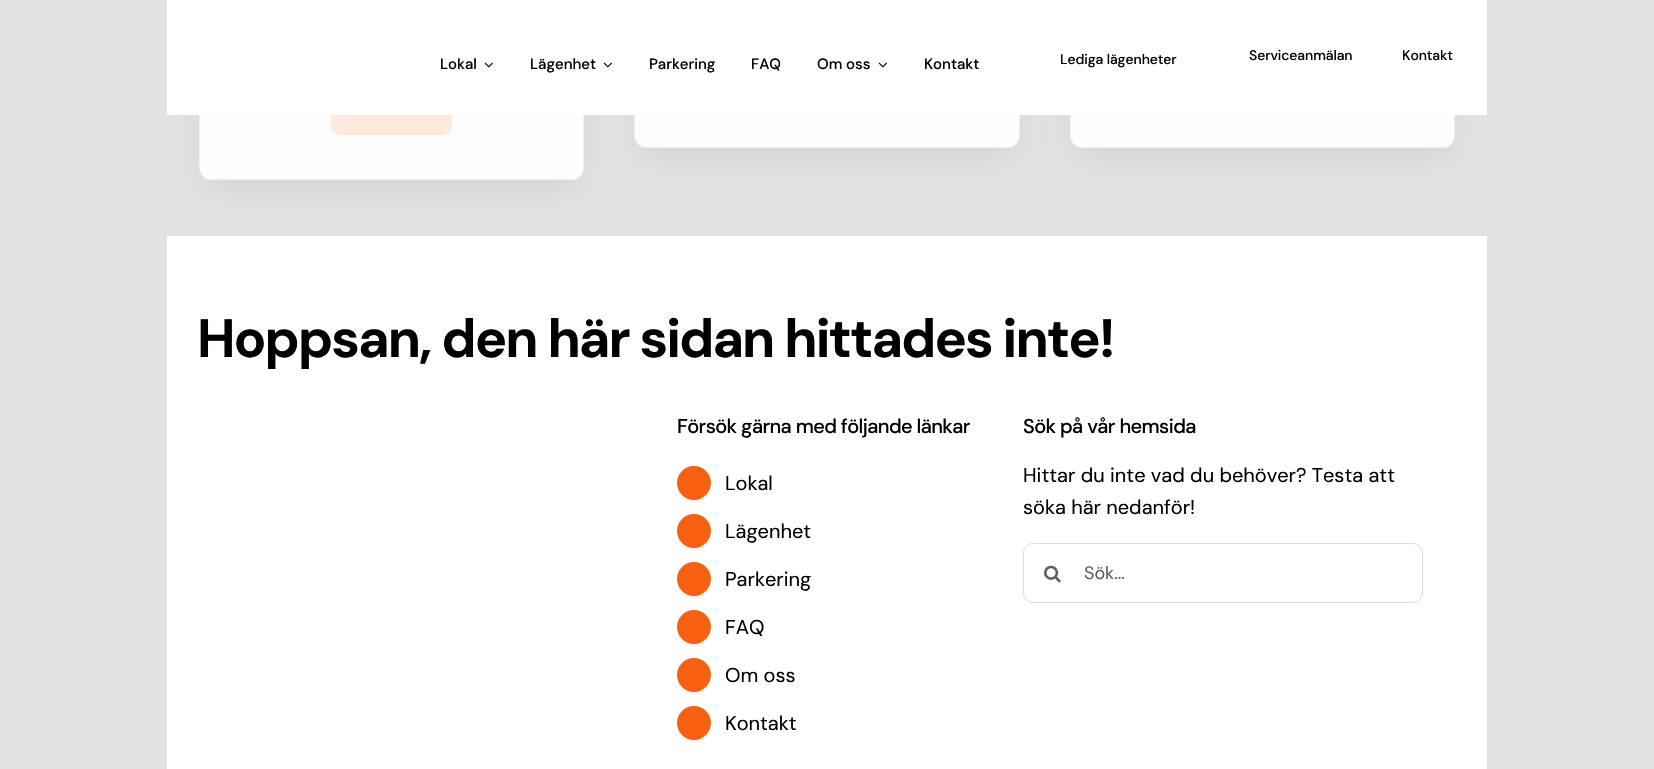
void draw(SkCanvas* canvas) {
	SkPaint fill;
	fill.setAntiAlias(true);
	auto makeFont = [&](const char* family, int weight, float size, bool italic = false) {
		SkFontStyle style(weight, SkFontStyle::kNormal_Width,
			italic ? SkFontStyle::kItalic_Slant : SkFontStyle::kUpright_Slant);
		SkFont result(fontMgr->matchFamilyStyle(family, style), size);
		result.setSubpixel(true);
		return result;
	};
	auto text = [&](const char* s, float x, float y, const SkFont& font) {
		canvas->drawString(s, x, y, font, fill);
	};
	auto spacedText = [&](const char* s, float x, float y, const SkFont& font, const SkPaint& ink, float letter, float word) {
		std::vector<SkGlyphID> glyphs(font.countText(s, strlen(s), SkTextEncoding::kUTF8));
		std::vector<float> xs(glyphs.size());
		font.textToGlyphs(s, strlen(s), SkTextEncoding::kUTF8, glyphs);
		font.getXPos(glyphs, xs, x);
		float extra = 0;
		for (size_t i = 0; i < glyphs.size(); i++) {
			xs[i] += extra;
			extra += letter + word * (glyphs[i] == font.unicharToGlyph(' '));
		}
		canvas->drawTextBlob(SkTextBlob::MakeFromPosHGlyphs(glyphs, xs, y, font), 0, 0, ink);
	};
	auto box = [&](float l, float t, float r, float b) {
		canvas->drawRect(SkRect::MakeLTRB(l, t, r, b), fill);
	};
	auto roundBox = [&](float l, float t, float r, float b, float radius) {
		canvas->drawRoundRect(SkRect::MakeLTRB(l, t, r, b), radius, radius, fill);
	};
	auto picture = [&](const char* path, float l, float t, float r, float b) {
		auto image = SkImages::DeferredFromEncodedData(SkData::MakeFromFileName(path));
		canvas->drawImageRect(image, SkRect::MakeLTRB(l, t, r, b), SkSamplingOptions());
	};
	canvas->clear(0xFFE2E2E2);
	fill.setColor(0x17000000);
	fill.setMaskFilter(SkMaskFilter::MakeBlur(kNormal_SkBlurStyle, 16));
	canvas->drawRoundRect(SkRect::MakeLTRB(209, -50, 574, 182), 2, 2, fill);
	fill.setMaskFilter(nullptr);
	fill.setColor(0xFFFDFDFD);
	roundBox(199, -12, 584, 180, 12);
	fill.setColor(0x0D000000);
	canvas->drawPath(SkPathBuilder(SkPathFillType::kEvenOdd).moveTo(211, -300).lineTo(572, -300).cubicTo(579, -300, 584, -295, 584, -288).lineTo(584, 168).cubicTo(584, 175, 579, 180, 572, 180).lineTo(211, 180).cubicTo(204, 180, 199, 175, 199, 168).lineTo(199, -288).cubicTo(199, -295, 204, -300, 211, -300).close().moveTo(211, -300).lineTo(572, -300).cubicTo(578, -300, 583, -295, 583, -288).lineTo(583, 168).cubicTo(583, 174, 578, 179, 572, 179).lineTo(211, 179).cubicTo(205, 179, 200, 174, 200, 168).lineTo(200, -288).cubicTo(200, -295, 205, -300, 211, -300).close().detach(), fill);
	fill.setColor(0xFFFFE9DC);
	roundBox(331, 92, 452, 135, 10);
	fill.setColor(0x17000000);
	fill.setMaskFilter(SkMaskFilter::MakeBlur(kNormal_SkBlurStyle, 16));
	canvas->drawRoundRect(SkRect::MakeLTRB(644, -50, 1010, 150), 2, 2, fill);
	fill.setMaskFilter(nullptr);
	fill.setColor(0xFFFDFDFD);
	roundBox(634, -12, 1020, 148, 12);
	fill.setColor(0x0D000000);
	canvas->drawPath(SkPathBuilder(SkPathFillType::kEvenOdd).moveTo(646, -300).lineTo(1008, -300).cubicTo(1015, -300, 1020, -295, 1020, -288).lineTo(1020, 136).cubicTo(1020, 143, 1015, 148, 1008, 148).lineTo(646, 148).cubicTo(639, 148, 634, 143, 634, 136).lineTo(634, -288).cubicTo(634, -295, 639, -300, 646, -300).close().moveTo(646, -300).lineTo(1008, -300).cubicTo(1014, -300, 1019, -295, 1019, -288).lineTo(1019, 136).cubicTo(1019, 142, 1014, 147, 1008, 147).lineTo(646, 147).cubicTo(640, 147, 635, 142, 635, 136).lineTo(635, -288).cubicTo(635, -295, 640, -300, 646, -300).close().detach(), fill);
	fill.setColor(0x17000000);
	fill.setMaskFilter(SkMaskFilter::MakeBlur(kNormal_SkBlurStyle, 16));
	canvas->drawRoundRect(SkRect::MakeLTRB(1080, -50, 1445, 150), 2, 2, fill);
	fill.setMaskFilter(nullptr);
	fill.setColor(0xFFFDFDFD);
	roundBox(1070, -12, 1455, 148, 12);
	fill.setColor(0x0D000000);
	canvas->drawPath(SkPathBuilder(SkPathFillType::kEvenOdd).moveTo(1082, -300).lineTo(1443, -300).cubicTo(1450, -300, 1455, -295, 1455, -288).lineTo(1455, 136).cubicTo(1455, 143, 1450, 148, 1443, 148).lineTo(1082, 148).cubicTo(1075, 148, 1070, 143, 1070, 136).lineTo(1070, -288).cubicTo(1070, -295, 1075, -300, 1082, -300).close().moveTo(1082, -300).lineTo(1443, -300).cubicTo(1449, -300, 1454, -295, 1454, -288).lineTo(1454, 136).cubicTo(1454, 142, 1449, 147, 1443, 147).lineTo(1082, 147).cubicTo(1076, 147, 1071, 142, 1071, 136).lineTo(1071, -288).cubicTo(1071, -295, 1076, -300, 1082, -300).close().detach(), fill);
	fill.setColor(0xFFFFFFFF);
	box(167, 0, 1487, 115);
	picture("image0.png", 484, 62, 493, 68);
	picture("image0.png", 603, 62, 612, 68);
	picture("image0.png", 878, 62, 887, 68);
	box(167, 236, 1487, 769);
	fill.setColor(0xFFF86011);
	canvas->drawCircle(694, 483, 17, fill);
	canvas->drawCircle(694, 531, 17, fill);
	canvas->drawCircle(694, 579, 17, fill);
	canvas->drawCircle(694, 627, 17, fill);
	canvas->drawCircle(694, 675, 17, fill);
	canvas->drawCircle(694, 723, 17, fill);
	fill.setStyle(SkPaint::kStroke_Style);
	fill.setStrokeWidth(1);
	fill.setColor(0xFFDCDCDC);
	canvas->drawRoundRect(SkRect::MakeLTRB(1023.5f, 543.5f, 1422.5f, 602.5f), 9.5f, 9.5f, fill);
	picture("image1.png", 1044, 565, 1061, 583);
	auto font1 = makeFont("DM Sans", 500, 15);
	fill.setStyle(SkPaint::kFill_Style);
	fill.setColor(0xFF000000);
	text("Lokal", 440, 69, font1);
	text("Lägenhet", 530, 69, font1);
	text("Parkering", 649, 69, font1);
	text("FAQ", 751, 69, font1);
	text("Om oss", 817, 69, font1);
	text("Kontakt", 924, 69, font1);
	auto font2 = makeFont("DM Sans", 500, 14);
	spacedText("Lediga lägenheter", 1060, 64, font2, fill, -0.1f, 0);
	spacedText("Serviceanmälan", 1249, 60, font2, fill, -0.1f, 0);
	spacedText("Kontakt", 1402, 60, font2, fill, -0.1f, 0);
	auto font3 = makeFont("DM Sans", 700, 54);
	spacedText("Hoppsan, den här sidan hittades inte!", 197, 357, font3, fill, -1.95f, 0);
	auto font4 = makeFont("DM Sans", 500, 20);
	spacedText("Försök gärna med följande länkar", 677, 433, font4, fill, -0.6f, 0);
	auto font5 = makeFont("DM Sans", 400, 20);
	text("Lokal", 725, 490, font5);
	text("Lägenhet", 725, 538, font5);
	text("Parkering", 725, 586, font5);
	text("FAQ", 725, 634, font5);
	text("Om oss", 725, 682, font5);
	text("Kontakt", 725, 730, font5);
	spacedText("Sök på vår hemsida", 1023, 433, font4, fill, -0.6f, 0);
	text("Hittar du inte vad du behöver? Testa att", 1023, 482, font5);
	text("söka här nedanför!", 1023, 514, font5);
	auto font6 = makeFont("DM Sans", 400, 18);
	fill.setColor(0xFF5E5E5E);
	text("Sök...", 1084, 579, font6);
}
